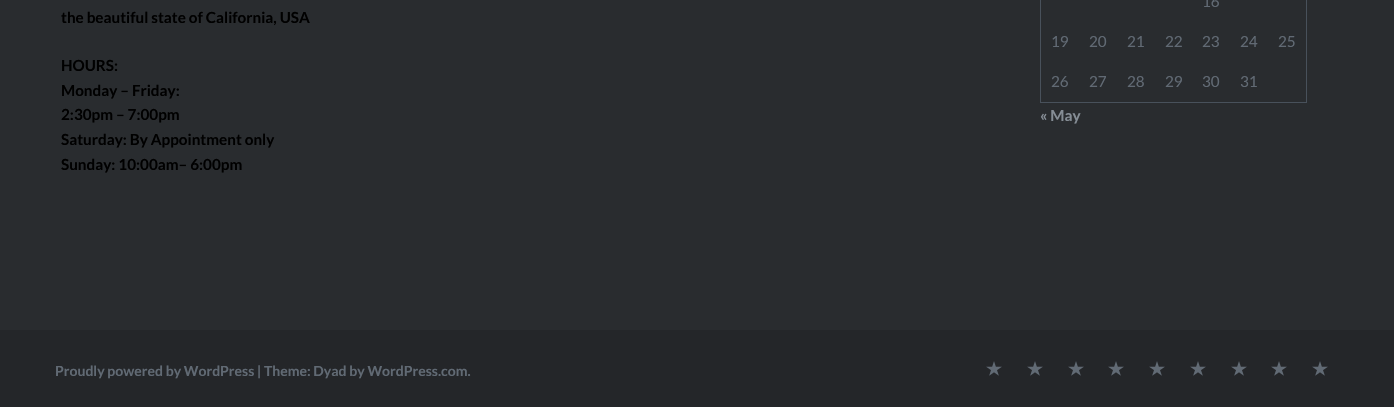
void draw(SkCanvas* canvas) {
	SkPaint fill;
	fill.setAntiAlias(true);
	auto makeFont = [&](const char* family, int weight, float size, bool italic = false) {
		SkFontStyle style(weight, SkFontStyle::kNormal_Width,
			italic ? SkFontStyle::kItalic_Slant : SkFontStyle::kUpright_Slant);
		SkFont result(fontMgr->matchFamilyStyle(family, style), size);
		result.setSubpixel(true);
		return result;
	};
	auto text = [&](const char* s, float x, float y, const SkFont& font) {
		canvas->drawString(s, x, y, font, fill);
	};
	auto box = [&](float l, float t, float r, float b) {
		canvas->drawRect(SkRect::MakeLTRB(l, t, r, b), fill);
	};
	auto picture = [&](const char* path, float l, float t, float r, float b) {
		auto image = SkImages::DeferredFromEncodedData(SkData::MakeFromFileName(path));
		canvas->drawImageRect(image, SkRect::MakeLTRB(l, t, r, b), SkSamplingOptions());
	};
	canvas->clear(0xFF292C2F);
	fill.setColor(0xFF48515B);
	box(1306, 0, 1307, 103);
	box(1040, 102, 1307, 103);
	box(1040, 0, 1041, 103);
	fill.setColor(0xFF242629);
	box(0, 330, 1394, 407);
	picture("image0.png", 986, 361, 1002, 376);
	picture("image0.png", 1027, 361, 1043, 376);
	picture("image0.png", 1068, 361, 1084, 376);
	picture("image0.png", 1108, 361, 1124, 376);
	picture("image0.png", 1149, 361, 1165, 376);
	picture("image0.png", 1190, 361, 1206, 376);
	picture("image0.png", 1231, 361, 1247, 376);
	picture("image0.png", 1271, 361, 1287, 376);
	picture("image0.png", 1312, 361, 1328, 376);
	auto font1 = makeFont("Lato", 700, 15.25f);
	fill.setColor(0xFF000000);
	text("the beautiful state of California, USA", 61, 23, font1);
	text("HOURS:", 61, 71, font1);
	text("Monday – Friday:", 61, 96, font1);
	text("2:30pm – 7:00pm", 61, 120, font1);
	text("Saturday: By Appointment only", 61, 145, font1);
	text("Sunday: 10:00am– 6:00pm", 61, 170, font1);
	auto font2 = makeFont("Lato", 400, 15.25f);
	fill.setColor(0xFF616A74);
	text("16", 1202, 7, font2);
	text("19", 1051, 47, font2);
	text("20", 1089, 47, font2);
	text("21", 1127, 47, font2);
	text("22", 1165, 47, font2);
	text("23", 1202, 47, font2);
	text("24", 1240, 47, font2);
	text("25", 1278, 47, font2);
	text("26", 1051, 87, font2);
	text("27", 1089, 87, font2);
	text("28", 1127, 87, font2);
	text("29", 1165, 87, font2);
	text("30", 1202, 87, font2);
	text("31", 1240, 87, font2);
	fill.setColor(0xFF858D95);
	text("« May", 1040, 121, font1);
	auto font3 = makeFont("Lato", 700, 14);
	fill.setColor(0xFF616A74);
	text("Proudly powered by WordPress | Theme: Dyad by WordPress.com.", 55, 376, font3);
}
